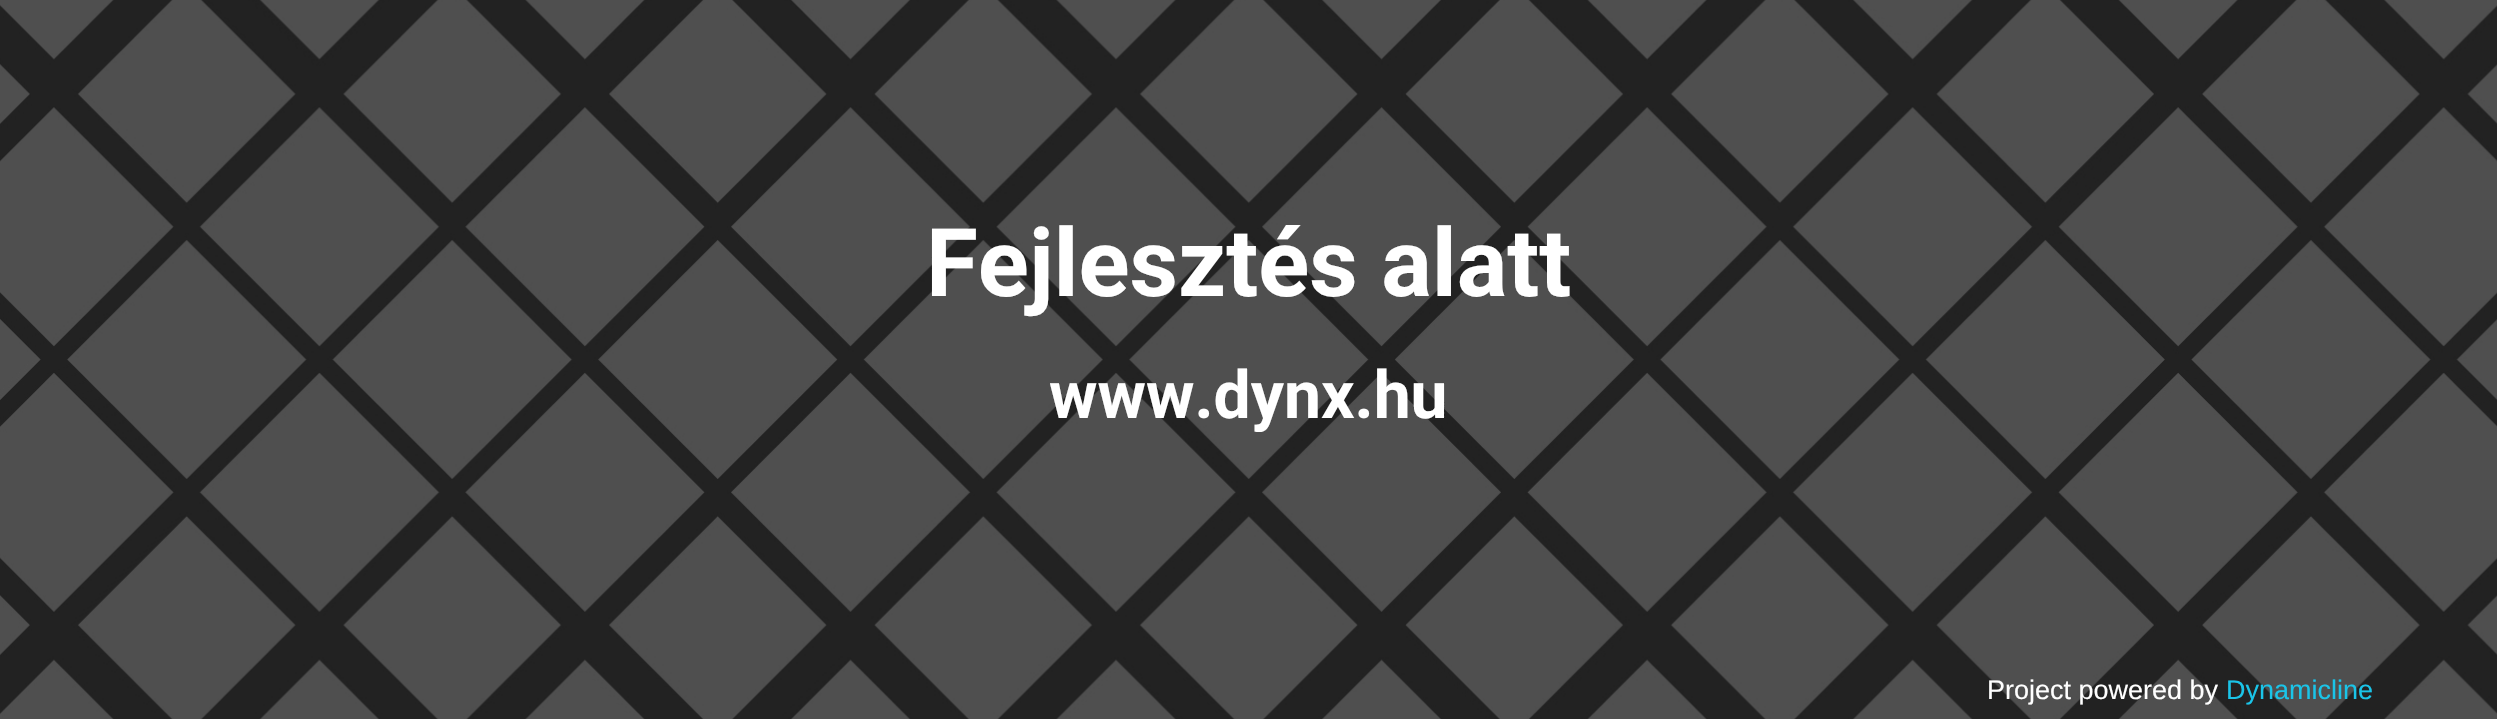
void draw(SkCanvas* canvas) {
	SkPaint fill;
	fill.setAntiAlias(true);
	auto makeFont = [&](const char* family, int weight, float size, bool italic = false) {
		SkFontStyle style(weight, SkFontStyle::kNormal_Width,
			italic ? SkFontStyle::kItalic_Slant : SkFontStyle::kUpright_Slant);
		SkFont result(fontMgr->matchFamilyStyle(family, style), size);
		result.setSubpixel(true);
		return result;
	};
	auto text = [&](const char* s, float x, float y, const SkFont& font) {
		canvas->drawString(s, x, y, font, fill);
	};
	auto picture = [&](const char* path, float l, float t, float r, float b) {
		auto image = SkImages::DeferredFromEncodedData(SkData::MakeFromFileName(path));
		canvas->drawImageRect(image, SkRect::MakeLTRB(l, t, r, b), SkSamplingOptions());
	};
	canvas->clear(0xFFFFFFFF);
	picture("image0.png", 0, 0, 2497, 719);
	auto font1 = makeFont("Roboto", 700, 94.5f);
	fill.setColor(0xFFFFFFFF);
	text("Fejlesztés alatt", 926, 296, font1);
	auto font2 = makeFont("Roboto", 700, 66);
	text("www.dynx.hu", 1049, 418, font2);
	auto font3 = makeFont("Liberation Sans", 400, 27);
	text("Project powered by", 1987, 699, font3);
	fill.setColor(0xFF1AC4E8);
	text("Dynamicline", 2226, 699, font3);
}
